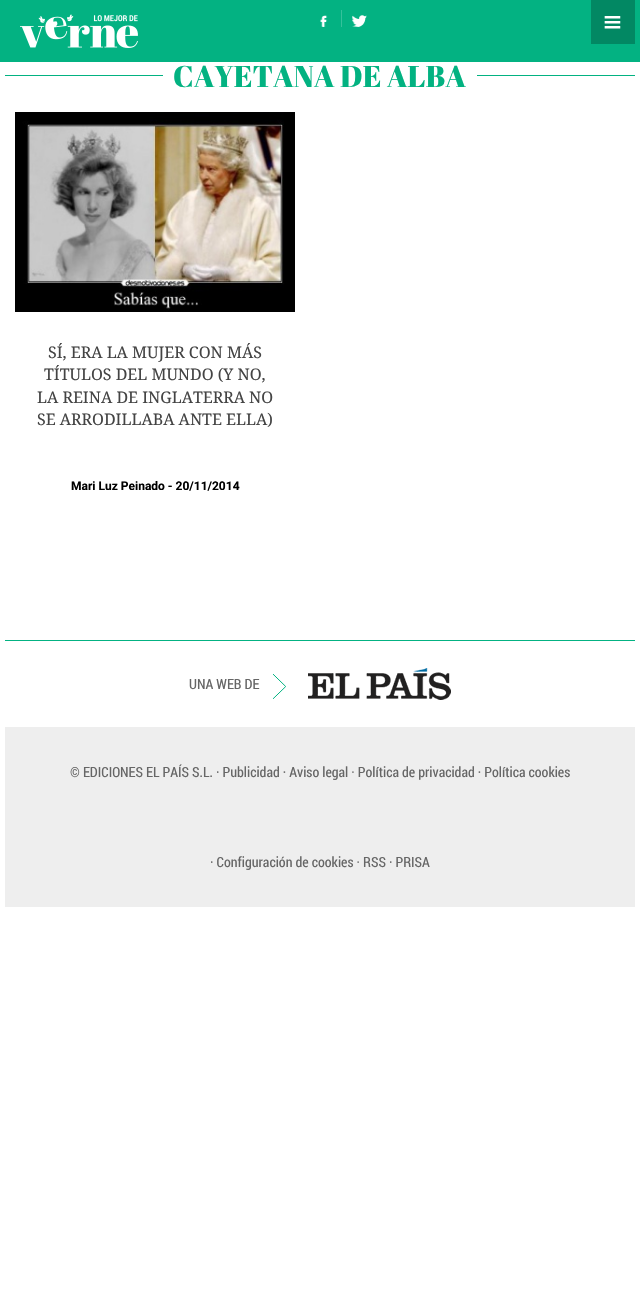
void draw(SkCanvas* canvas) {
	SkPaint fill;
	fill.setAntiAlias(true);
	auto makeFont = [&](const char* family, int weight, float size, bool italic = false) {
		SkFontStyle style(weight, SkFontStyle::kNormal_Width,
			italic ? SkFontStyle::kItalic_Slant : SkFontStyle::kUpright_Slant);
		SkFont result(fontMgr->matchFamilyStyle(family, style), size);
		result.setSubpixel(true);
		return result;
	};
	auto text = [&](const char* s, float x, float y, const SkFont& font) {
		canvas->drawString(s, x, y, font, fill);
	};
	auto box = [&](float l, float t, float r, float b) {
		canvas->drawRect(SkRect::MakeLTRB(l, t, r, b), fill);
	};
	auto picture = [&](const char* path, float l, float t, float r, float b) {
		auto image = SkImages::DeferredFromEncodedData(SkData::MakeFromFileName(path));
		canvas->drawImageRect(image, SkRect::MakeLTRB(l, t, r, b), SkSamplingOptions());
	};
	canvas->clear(0xFFFFFFFF);
	fill.setColor(0xFF03B282);
	box(0, 0, 640, 62);
	picture("image0.png", 20, 14, 138, 48);
	fill.setColor(0xFF35C19B);
	box(341, 10, 342, 27);
	picture("image1.png", 320, 15, 328, 27);
	picture("image2.png", 352, 15, 367, 27);
	fill.setColor(0xFF028863);
	box(591, 0, 635, 44);
	picture("image3.png", 604, 16, 621, 29);
	fill.setColor(0xFF02B281);
	box(5, 75, 635, 76);
	fill.setColor(0xFFFFFFFF);
	box(163, 75, 477, 76);
	picture("image4.png", 15, 112, 295, 312);
	fill.setColor(0xFF03B282);
	box(5, 640, 635, 641);
	picture("image5.png", 308, 668, 451, 700);
	picture("image6.png", 273, 674, 286, 699);
	fill.setColor(0xFFEEEEEE);
	box(5, 727, 635, 907);
	auto font1 = makeFont("Abril Fatface", 400, 30);
	fill.setColor(0xFF02B281);
	text("CAYETANA DE ALBA", 173, 87, font1);
	auto font2 = makeFont("Droid Serif", 400, 16);
	fill.setColor(0xFF444444);
	text("SÍ, ERA LA MUJER CON MÁS", 48, 358, font2);
	text("TÍTULOS DEL MUNDO (Y NO,", 44, 380, font2);
	text("LA REINA DE INGLATERRA NO", 37, 403, font2);
	text("SE ARRODILLABA ANTE ELLA)", 37, 425, font2);
	auto font3 = makeFont("Roboto", 700, 12);
	fill.setColor(0xFF000000);
	text("Mari Luz Peinado - 20/11/2014", 71, 490, font3);
	auto font4 = makeFont("Roboto Condensed", 400, 14);
	fill.setColor(0xFF666666);
	text("UNA WEB DE", 189, 689, font4);
	text("© EDICIONES EL PAÍS S.L.", 70, 777, font4);
	text("· Publicidad · Aviso legal · Política de privacidad · Política cookies", 216, 777, font4);
	text("· Configuración de cookies · RSS · PRISA", 210, 867, font4);
}
